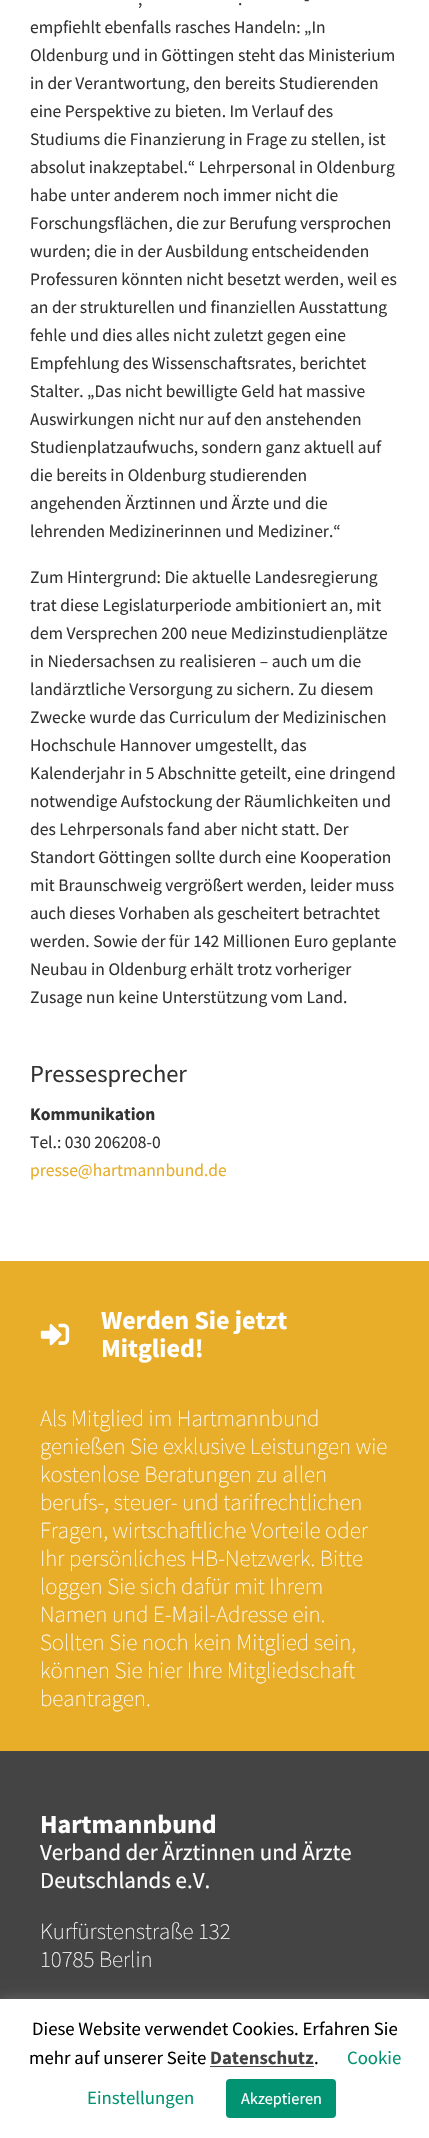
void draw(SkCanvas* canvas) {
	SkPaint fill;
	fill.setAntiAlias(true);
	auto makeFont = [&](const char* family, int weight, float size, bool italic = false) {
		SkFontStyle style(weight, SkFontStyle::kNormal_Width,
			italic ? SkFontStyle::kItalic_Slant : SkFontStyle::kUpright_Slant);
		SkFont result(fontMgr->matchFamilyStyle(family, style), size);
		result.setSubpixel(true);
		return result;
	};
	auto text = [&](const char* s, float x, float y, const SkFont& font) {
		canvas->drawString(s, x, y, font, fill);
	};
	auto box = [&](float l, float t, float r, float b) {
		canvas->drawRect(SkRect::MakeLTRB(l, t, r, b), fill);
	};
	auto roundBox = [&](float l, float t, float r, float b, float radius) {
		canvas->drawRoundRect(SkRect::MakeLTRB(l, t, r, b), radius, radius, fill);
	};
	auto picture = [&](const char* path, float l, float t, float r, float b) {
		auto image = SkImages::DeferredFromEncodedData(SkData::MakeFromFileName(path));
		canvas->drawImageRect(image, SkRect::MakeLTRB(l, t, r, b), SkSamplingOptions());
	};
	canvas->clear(0xFFFFFFFF);
	fill.setColor(0xFF444444);
	box(0, 1751, 429, 1999);
	fill.setColor(0xFFE8AD29);
	box(0, 1261, 429, 1751);
	picture("image0.png", 40, 1323, 70, 1346);
	fill.setColor(0x4DACABAB);
	fill.setMaskFilter(SkMaskFilter::MakeBlur(kNormal_SkBlurStyle, 6));
	canvas->drawRect(SkRect::MakeLTRB(0, 1998, 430, 2138), fill);
	fill.setMaskFilter(nullptr);
	fill.setColor(0xFFFFFFFF);
	box(0, 1999, 429, 2138);
	fill.setColor(0xFF444444);
	box(210, 2066, 314, 2067);
	fill.setColor(0xFF019372);
	roundBox(226, 2079, 336, 2118, 4);
	auto font1 = makeFont("Source Sans Pro", 400, 17.5f);
	fill.setColor(0xFF333333);
	text("-", 304, 5, font1);
	text(",", 138, 5, font1);
	text(".", 238, 5, font1);
	text("empfiehlt ebenfalls rasches Handeln: „In", 30, 33, font1);
	text("Oldenburg und in Göttingen steht das Ministerium", 30, 61, font1);
	text("in der Verantwortung, den bereits Studierenden", 30, 89, font1);
	text("eine Perspektive zu bieten. Im Verlauf des", 30, 117, font1);
	text("Studiums die Finanzierung in Frage zu stellen, ist", 30, 145, font1);
	text("absolut inakzeptabel.“ Lehrpersonal in Oldenburg", 30, 173, font1);
	text("habe unter anderem noch immer nicht die", 30, 201, font1);
	text("Forschungsflächen, die zur Berufung versprochen", 30, 229, font1);
	text("wurden; die in der Ausbildung entscheidenden", 30, 257, font1);
	text("Professuren könnten nicht besetzt werden, weil es", 30, 285, font1);
	text("an der strukturellen und finanziellen Ausstattung", 30, 313, font1);
	text("fehle und dies alles nicht zuletzt gegen eine", 30, 341, font1);
	text("Empfehlung des Wissenschaftsrates, berichtet", 30, 369, font1);
	text("Stalter. „Das nicht bewilligte Geld hat massive", 30, 397, font1);
	text("Auswirkungen nicht nur auf den anstehenden", 30, 425, font1);
	text("Studienplatzaufwuchs, sondern ganz aktuell auf", 30, 453, font1);
	text("die bereits in Oldenburg studierenden", 30, 481, font1);
	text("angehenden Ärztinnen und Ärzte und die", 30, 509, font1);
	text("lehrenden Medizinerinnen und Mediziner.“", 30, 537, font1);
	text("Zum Hintergrund: Die aktuelle Landesregierung", 30, 583, font1);
	text("trat diese Legislaturperiode ambitioniert an, mit", 30, 611, font1);
	text("dem Versprechen 200 neue Medizinstudienplätze", 30, 639, font1);
	text("in Niedersachsen zu realisieren – auch um die", 30, 667, font1);
	text("landärztliche Versorgung zu sichern. Zu diesem", 30, 695, font1);
	text("Zwecke wurde das Curriculum der Medizinischen", 30, 723, font1);
	text("Hochschule Hannover umgestellt, das", 30, 751, font1);
	text("Kalenderjahr in 5 Abschnitte geteilt, eine dringend", 30, 779, font1);
	text("notwendige Aufstockung der Räumlichkeiten und", 30, 807, font1);
	text("des Lehrpersonals fand aber nicht statt. Der", 30, 835, font1);
	text("Standort Göttingen sollte durch eine Kooperation", 30, 863, font1);
	text("mit Braunschweig vergrößert werden, leider muss", 30, 891, font1);
	text("auch dieses Vorhaben als gescheitert betrachtet", 30, 919, font1);
	text("werden. Sowie der für 142 Millionen Euro geplante", 30, 947, font1);
	text("Neubau in Oldenburg erhält trotz vorheriger", 30, 975, font1);
	text("Zusage nun keine Unterstützung vom Land.", 30, 1003, font1);
	auto font2 = makeFont("Source Sans Pro", 400, 24.5f);
	text("Pressesprecher", 30, 1082, font2);
	auto font3 = makeFont("Source Sans Pro", 700, 17.5f);
	text("Kommunikation", 30, 1120, font3);
	text("Tel.: 030 206208-0", 30, 1148, font1);
	fill.setColor(0xFFE8AD29);
	text("presse@hartmannbund.de", 30, 1176, font1);
	auto font4 = makeFont("Source Sans Pro", 700, 26);
	fill.setColor(0xFFFFFFFF);
	text("Werden Sie jetzt", 101, 1329, font4);
	text("Mitglied!", 101, 1357, font4);
	auto font5 = makeFont("Source Sans Pro", 200, 23);
	text("Als Mitglied im Hartmannbund", 40, 1426, font5);
	text("genießen Sie exklusive Leistungen wie", 40, 1454, font5);
	text("kostenlose Beratungen zu allen", 40, 1482, font5);
	text("berufs-, steuer- und tarifrechtlichen", 40, 1510, font5);
	text("Fragen, wirtschaftliche Vorteile oder", 40, 1538, font5);
	text("Ihr persönliches HB-Netzwerk. Bitte", 40, 1566, font5);
	text("loggen Sie sich dafür mit Ihrem", 40, 1594, font5);
	text("Namen und E-Mail-Adresse ein.", 40, 1622, font5);
	text("Sollten Sie noch kein Mitglied sein,", 40, 1650, font5);
	text("können Sie hier Ihre Mitgliedschaft", 40, 1678, font5);
	text("beantragen.", 40, 1706, font5);
	text("Hartmannbund", 40, 1833, font4);
	auto font6 = makeFont("Source Sans Pro", 400, 23);
	text("Verband der Ärztinnen und Ärzte", 40, 1860, font6);
	text("Deutschlands e.V.", 40, 1888, font6);
	text("Kurfürstenstraße 132", 40, 1939, font5);
	text("10785 Berlin", 40, 1967, font5);
	auto font7 = makeFont("Source Sans Pro", 400, 18.75f);
	fill.setColor(0xFF000000);
	text("Diese Website verwendet Cookies. Erfahren Sie", 32, 2035, font7);
	text("mehr auf unserer Seite", 29, 2064, font7);
	auto font8 = makeFont("Source Sans Pro", 700, 18.75f);
	fill.setColor(0xFF444444);
	text("Datenschutz", 210, 2064, font8);
	fill.setColor(0xFF000000);
	text(".", 314, 2064, font7);
	fill.setColor(0xFF019372);
	text("Cookie", 347, 2064, font7);
	text("Einstellungen", 87, 2104, font7);
	auto font9 = makeFont("Source Sans Pro", 400, 16.25f);
	fill.setColor(0xFFFFFFFF);
	text("Akzeptieren", 241, 2104, font9);
}
